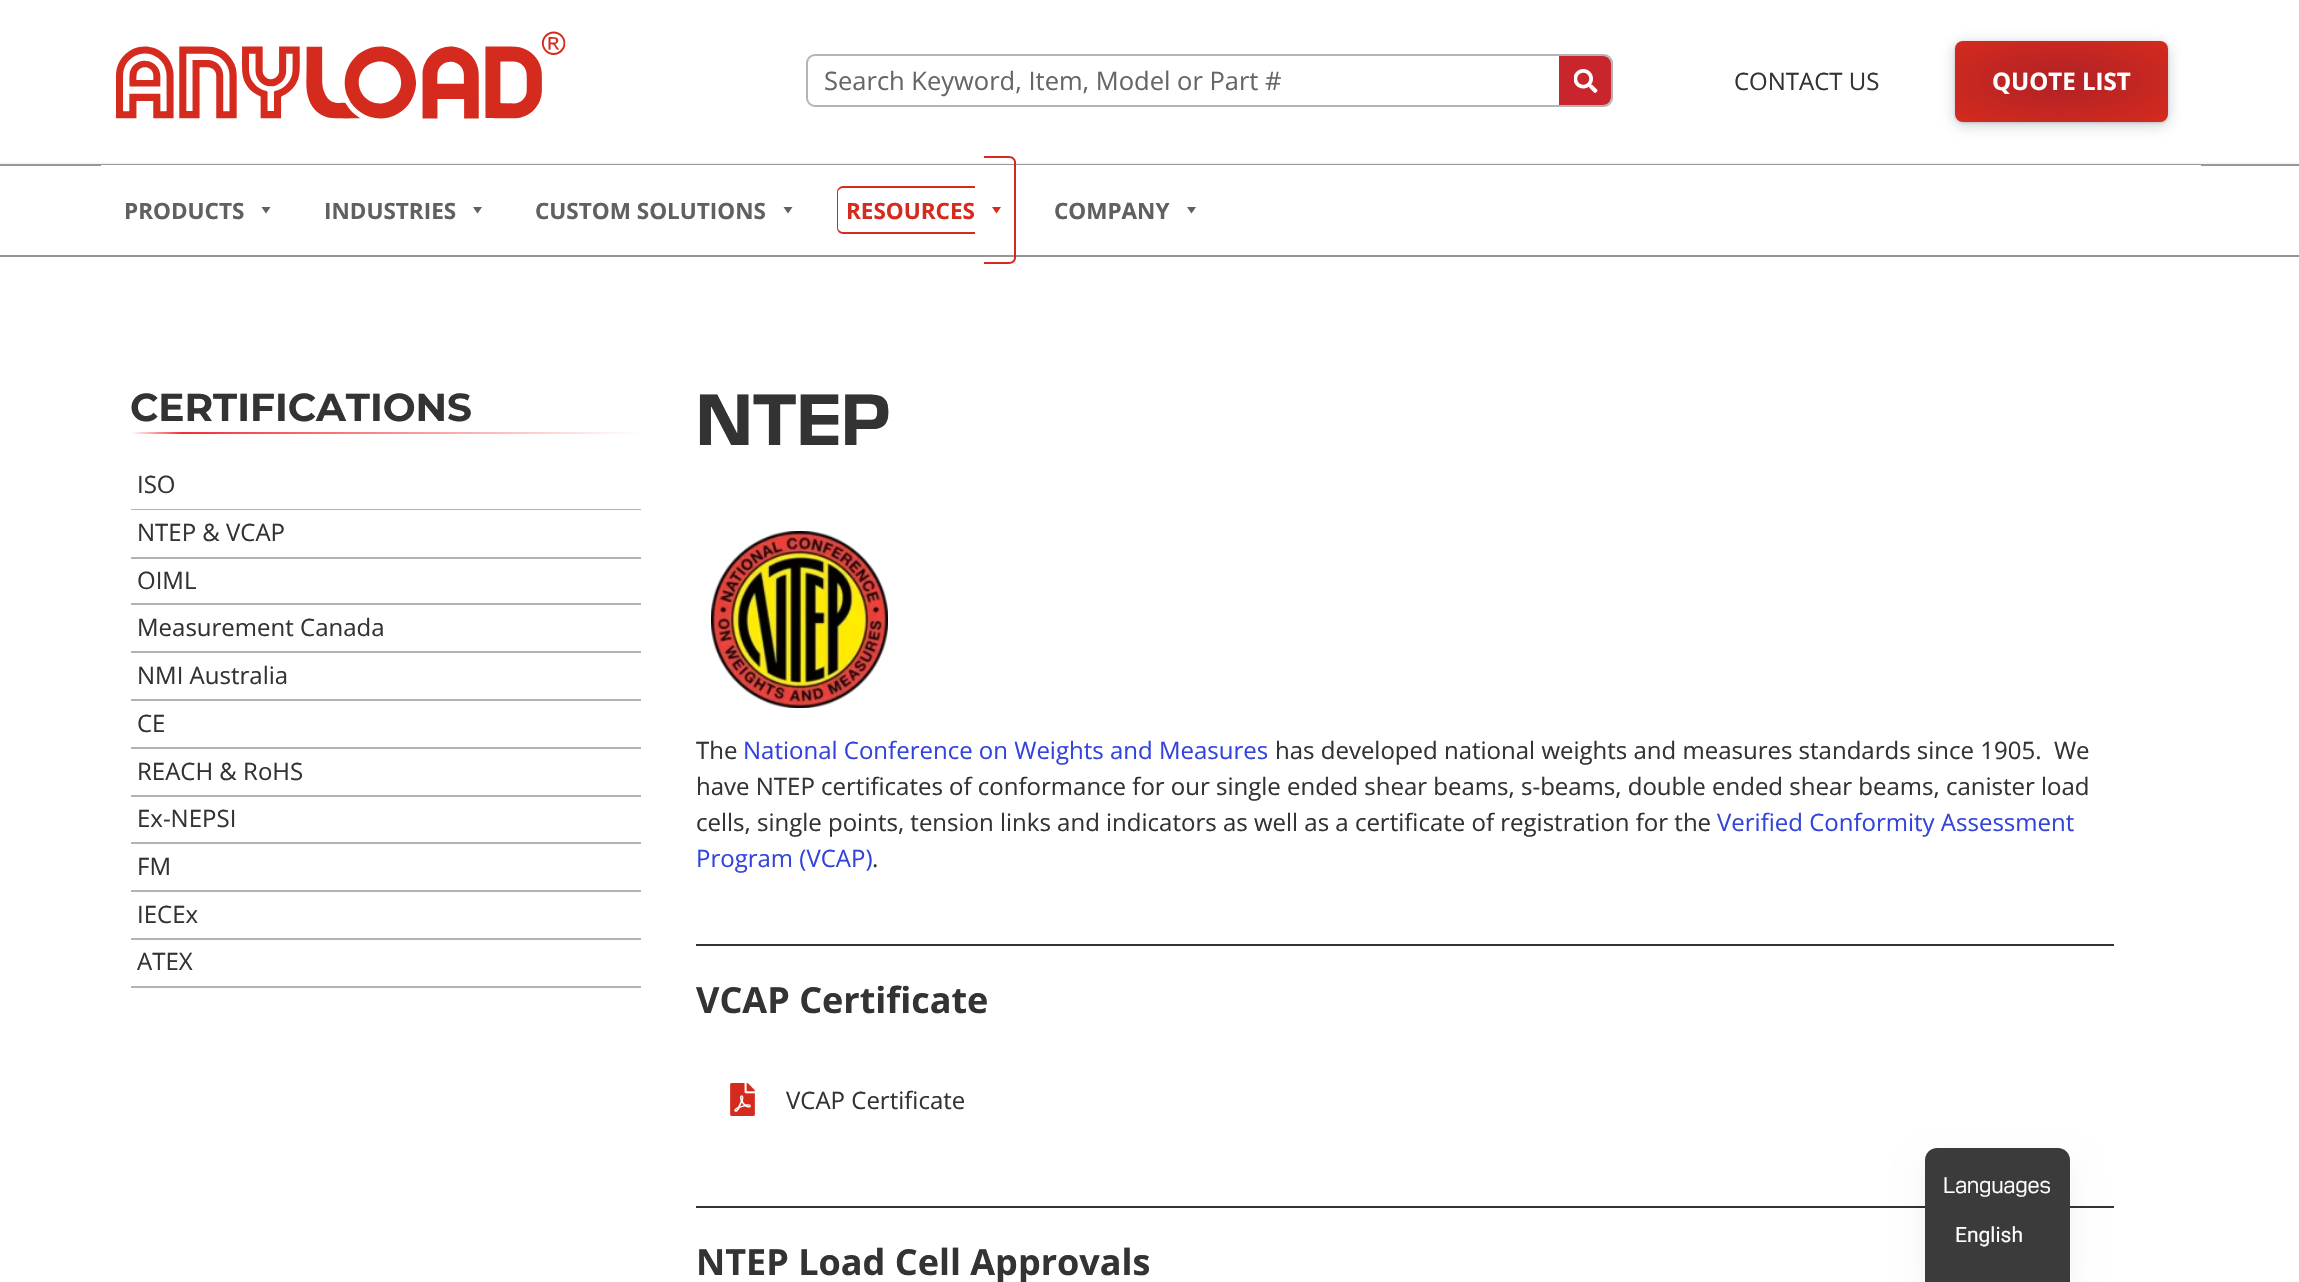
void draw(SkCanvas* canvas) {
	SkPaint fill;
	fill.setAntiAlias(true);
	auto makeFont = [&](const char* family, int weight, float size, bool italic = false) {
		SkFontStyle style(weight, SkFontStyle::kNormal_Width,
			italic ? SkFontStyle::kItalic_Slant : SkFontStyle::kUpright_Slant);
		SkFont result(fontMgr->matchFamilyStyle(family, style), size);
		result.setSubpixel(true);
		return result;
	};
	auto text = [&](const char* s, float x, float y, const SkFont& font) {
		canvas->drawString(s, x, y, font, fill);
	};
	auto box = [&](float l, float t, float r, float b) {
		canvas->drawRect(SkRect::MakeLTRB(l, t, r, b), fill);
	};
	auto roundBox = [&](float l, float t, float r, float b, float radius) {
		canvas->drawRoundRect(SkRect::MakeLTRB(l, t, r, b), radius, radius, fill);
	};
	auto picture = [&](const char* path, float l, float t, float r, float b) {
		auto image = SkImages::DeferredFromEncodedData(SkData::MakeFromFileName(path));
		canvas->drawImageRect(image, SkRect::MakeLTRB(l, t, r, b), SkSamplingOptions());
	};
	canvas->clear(0xFFFFFFFF);
	fill.setColor(0xFFF7F7F7);
	box(0, 162, 2299, 164);
	picture("image0.png", 116, 31, 566, 119);
	fill.setStyle(SkPaint::kStroke_Style);
	fill.setStrokeWidth(2);
	fill.setColor(0xFFB4B4B4);
	canvas->drawRoundRect(SkRect::MakeLTRB(807, 55, 1612, 106), 8, 8, fill);
	fill.setStyle(SkPaint::kFill_Style);
	fill.setColor(0xFFC9252C);
	canvas->drawPath(SkPathBuilder().moveTo(1559, 56).lineTo(1603, 56).cubicTo(1607.5f, 56, 1611, 59.5f, 1611, 64).lineTo(1611, 97).cubicTo(1611, 101.5f, 1607.5f, 105, 1603, 105).lineTo(1559, 105).close().detach(), fill);
	picture("image1.png", 1574, 69, 1598, 93);
	fill.setColor(0x33080808);
	fill.setMaskFilter(SkMaskFilter::MakeBlur(kNormal_SkBlurStyle, 1.5f));
	canvas->drawRoundRect(SkRect::MakeLTRB(1955, 42, 2168, 123), 8, 8, fill);
	fill.setMaskFilter(nullptr);
	fill.setColor(0x80959DA5);
	fill.setMaskFilter(SkMaskFilter::MakeBlur(kNormal_SkBlurStyle, 7.5f));
	canvas->drawRoundRect(SkRect::MakeLTRB(1955, 44, 2168, 125), 8, 8, fill);
	fill.setMaskFilter(nullptr);
	{
		const SkColor colors[] = {0xFFB02126, 0xFFD52B1E};
		const float stops[] = {0, 1};
		SkMatrix m = SkMatrix::Translate(2061, 81).preScale(151, 57);
		fill.setShader(SkGradientShader::MakeRadial({0, 0}, 1, colors, stops, 2, SkTileMode::kClamp, 0, &m));
		fill.setAlpha(255);
	}
	roundBox(1955, 41, 2168, 122, 8);
	fill.setShader(nullptr);
	fill.setColor(0xFF969696);
	box(0, 164, 2299, 166);
	box(0, 255, 2299, 257);
	fill.setColor(0xFFFFFFFF);
	box(101, 165, 2201, 166);
	fill.setColor(0xFF606060);
	canvas->drawPath(SkPathBuilder().moveTo(270.5f, 207).lineTo(266, 213.5f).lineTo(261.5f, 207).close().detach(), fill);
	canvas->drawPath(SkPathBuilder().moveTo(482, 207).lineTo(477.5f, 213.5f).lineTo(473, 207).close().detach(), fill);
	canvas->drawPath(SkPathBuilder().moveTo(792.5f, 207).lineTo(788, 213.5f).lineTo(783.5f, 207).close().detach(), fill);
	fill.setColor(0xFFD52B1E);
	canvas->drawPath(SkPathBuilder(SkPathFillType::kEvenOdd).moveTo(843, 186).lineTo(975, 186).lineTo(975, 234).lineTo(843, 234).cubicTo(840, 234, 837, 231, 837, 228).lineTo(837, 192).cubicTo(837, 189, 840, 186, 843, 186).close().moveTo(843, 188).lineTo(975, 188).lineTo(975, 232).lineTo(843, 232).cubicTo(841, 232, 838, 230, 838, 228).lineTo(838, 192).cubicTo(838, 190, 841, 188, 843, 188).close().detach(), fill);
	canvas->drawPath(SkPathBuilder(SkPathFillType::kEvenOdd).moveTo(984, 156).lineTo(1009, 156).cubicTo(1013, 156, 1016, 159, 1016, 162).lineTo(1016, 258).cubicTo(1016, 261, 1013, 264, 1009, 264).lineTo(984, 264).close().moveTo(984, 158).lineTo(1009, 158).cubicTo(1012, 158, 1014, 160, 1014, 162).lineTo(1014, 258).cubicTo(1014, 260, 1012, 262, 1009, 262).lineTo(984, 262).close().detach(), fill);
	canvas->drawPath(SkPathBuilder().moveTo(1001, 207).lineTo(996.5f, 213.5f).lineTo(992, 207).close().detach(), fill);
	fill.setColor(0xFF606060);
	canvas->drawPath(SkPathBuilder().moveTo(1196, 207).lineTo(1191.5f, 213.5f).lineTo(1187, 207).close().detach(), fill);
	{
		const SkColor colors[] = {0xFFFFFFFF, 0xFFF23037, 0xFFFFFFFF};
		const float stops[] = {0, 0.1f, 1};
		const SkPoint ends[] = {{131, 433}, {641, 433}};
		fill.setShader(SkGradientShader::MakeLinear(ends, colors, stops, 3, SkTileMode::kClamp));
		fill.setAlpha(255);
	}
	box(131, 432, 641, 434);
	fill.setShader(nullptr);
	fill.setColor(0xFFB3B3B3);
	box(131, 509, 641, 510);
	box(131, 557, 641, 559);
	box(131, 603, 641, 605);
	box(131, 651, 641, 653);
	box(131, 699, 641, 701);
	box(131, 747, 641, 749);
	box(131, 795, 641, 797);
	box(131, 842, 641, 844);
	box(131, 890, 641, 892);
	box(131, 938, 641, 940);
	box(131, 986, 641, 988);
	picture("image2.png", 711, 531, 888, 708);
	fill.setColor(0xFF333333);
	box(696, 944, 2114, 946);
	picture("image3.png", 730, 1083, 755, 1116);
	box(696, 1206, 2114, 1208);
	fill.setColor(0x0D000000);
	fill.setMaskFilter(SkMaskFilter::MakeBlur(kNormal_SkBlurStyle, 15));
	canvas->drawRoundRect(SkRect::MakeLTRB(1925, 1163, 2070, 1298), 12, 12, fill);
	fill.setMaskFilter(nullptr);
	fill.setColor(0xFF3B3B3B);
	canvas->drawPath(SkPathBuilder().moveTo(1937, 1148).lineTo(2058, 1148).cubicTo(2064.5f, 1148, 2070, 1153.5f, 2070, 1160).lineTo(2070, 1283).lineTo(1925, 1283).lineTo(1925, 1160).cubicTo(1925, 1153.5f, 1930.5f, 1148, 1937, 1148).close().detach(), fill);
	auto font1 = makeFont("Open Sans", 400, 25.5f);
	fill.setColor(0xFF666666);
	text("Search Keyword, Item, Model or Part #", 824, 90, font1);
	auto font2 = makeFont("Open Sans", 400, 24);
	fill.setColor(0xFF333333);
	text("CONTACT US", 1734, 90, font2);
	auto font3 = makeFont("Open Sans", 700, 24);
	fill.setColor(0xFFFFFFFF);
	text("QUOTE LIST", 1992, 90, font3);
	auto font4 = makeFont("Open Sans", 700, 22.5f);
	fill.setColor(0xFF606060);
	text("PRODUCTS", 124, 219, font4);
	text("INDUSTRIES", 324, 219, font4);
	text("CUSTOM SOLUTIONS", 535, 219, font4);
	fill.setColor(0xFFD52B1E);
	text("RESOURCES", 846, 219, font4);
	fill.setColor(0xFF606060);
	text("COMPANY", 1054, 219, font4);
	auto font5 = makeFont("Montserrat", 700, 39);
	fill.setColor(0xFF333333);
	text("CERTIFICATIONS", 130, 421, font5);
	text("ISO", 137, 493, font2);
	text("NTEP & VCAP", 137, 541, font2);
	text("OIML", 137, 589, font2);
	text("Measurement Canada", 137, 636, font2);
	text("NMI Australia", 137, 684, font2);
	text("CE", 137, 732, font2);
	text("REACH & RoHS", 137, 780, font2);
	text("Ex-NEPSI", 137, 827, font2);
	text("FM", 137, 875, font2);
	text("IECEx", 137, 923, font2);
	text("ATEX", 137, 970, font2);
	auto font6 = makeFont("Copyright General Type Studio", 700, 72);
	text("NTEP", 696, 445, font6);
	text("The", 696, 759, font2);
	fill.setColor(0xFF3344DD);
	text("National Conference on Weights and Measures", 743, 759, font2);
	fill.setColor(0xFF333333);
	text("has developed national weights and measures standards since 1905.  We", 1275, 759, font2);
	text("have NTEP certificates of conformance for our single ended shear beams, s-beams, double ended shear beams, canister load", 696, 795, font2);
	text("cells, single points, tension links and indicators as well as a certificate of registration for the", 696, 831, font2);
	fill.setColor(0xFF3344DD);
	text("Verified Conformity Assessment", 1717, 831, font2);
	text("Program (VCAP)", 696, 867, font2);
	fill.setColor(0xFF333333);
	text(".", 872, 867, font2);
	auto font7 = makeFont("Open Sans", 700, 36);
	text("VCAP Certificate", 696, 1013, font7);
	text("VCAP Certificate", 786, 1109, font2);
	text("NTEP Load Cell Approvals", 696, 1275, font7);
	auto font8 = makeFont("Copyright General Type Studio", 400, 22.5f);
	fill.setColor(0xFFFFFFFF);
	text("Languages", 1943, 1193, font8);
	auto font9 = makeFont("Roboto", 400, 21);
	text("English", 1955, 1242, font9);
}
